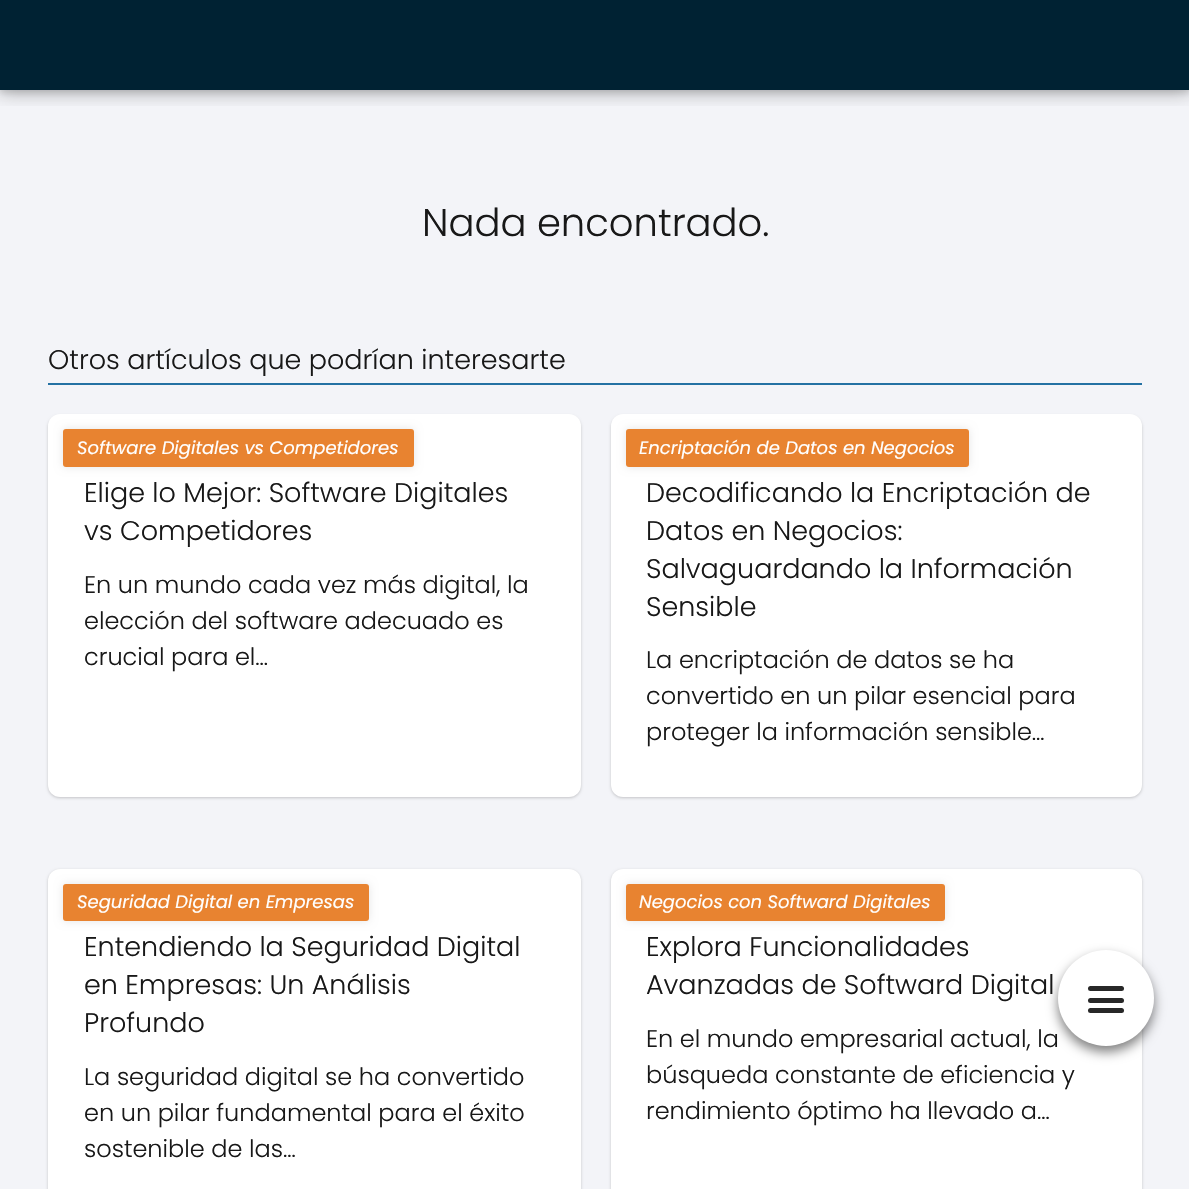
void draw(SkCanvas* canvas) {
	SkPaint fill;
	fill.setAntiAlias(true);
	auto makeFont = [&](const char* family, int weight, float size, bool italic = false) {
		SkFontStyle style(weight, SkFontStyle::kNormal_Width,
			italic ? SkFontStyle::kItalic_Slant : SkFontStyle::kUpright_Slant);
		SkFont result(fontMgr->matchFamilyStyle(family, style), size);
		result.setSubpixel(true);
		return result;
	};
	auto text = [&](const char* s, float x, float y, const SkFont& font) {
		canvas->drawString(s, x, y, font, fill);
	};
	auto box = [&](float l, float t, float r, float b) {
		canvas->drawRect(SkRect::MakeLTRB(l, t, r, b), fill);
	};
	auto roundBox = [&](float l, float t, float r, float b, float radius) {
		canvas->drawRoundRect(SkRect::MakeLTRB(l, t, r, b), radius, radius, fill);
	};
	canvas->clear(0xFFF3F4F8);
	fill.setColor(0x1A000000);
	fill.setMaskFilter(SkMaskFilter::MakeBlur(kNormal_SkBlurStyle, 3));
	canvas->drawRect(SkRect::MakeLTRB(0, 3, 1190, 93), fill);
	fill.setMaskFilter(nullptr);
	fill.setColor(0xFF002233);
	box(0, 0, 1189, 90);
	fill.setColor(0x33000000);
	fill.setMaskFilter(SkMaskFilter::MakeBlur(kNormal_SkBlurStyle, 1.5f));
	canvas->drawRoundRect(SkRect::MakeLTRB(611, 870, 1142, 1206), 12, 12, fill);
	fill.setMaskFilter(nullptr);
	fill.setColor(0xFFFFFFFF);
	roundBox(611, 869, 1142, 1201, 12);
	fill.setColor(0x80000000);
	fill.setMaskFilter(SkMaskFilter::MakeBlur(kNormal_SkBlurStyle, 6));
	canvas->drawRoundRect(SkRect::MakeLTRB(1058, 956, 1154, 1052), 48, 48, fill);
	fill.setMaskFilter(nullptr);
	fill.setColor(0xFFFFFFFF);
	canvas->drawCircle(1106, 998, 48, fill);
	fill.setColor(0xFF282828);
	roundBox(1088, 986, 1124, 991, 2.5f);
	roundBox(1088, 998, 1124, 1003, 2.5f);
	roundBox(1088, 1008, 1124, 1013, 2.5f);
	canvas->save();
	canvas->clipRect(SkRect::MakeLTRB(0, 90, 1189, 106));
	fill.setColor(0x4D000000);
	fill.setMaskFilter(SkMaskFilter::MakeBlur(kNormal_SkBlurStyle, 9));
	canvas->drawRect(SkRect::MakeLTRB(0, 2, 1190, 92), fill);
	fill.setMaskFilter(nullptr);
	canvas->restore();
	fill.setColor(0xFF2471A3);
	box(48, 383, 1142, 385);
	fill.setColor(0x33000000);
	fill.setMaskFilter(SkMaskFilter::MakeBlur(kNormal_SkBlurStyle, 1.5f));
	canvas->drawRoundRect(SkRect::MakeLTRB(48, 416, 581, 798), 12, 12, fill);
	fill.setMaskFilter(nullptr);
	fill.setColor(0xFFFFFFFF);
	roundBox(48, 414, 581, 797, 12);
	fill.setColor(0x1A000000);
	fill.setMaskFilter(SkMaskFilter::MakeBlur(kNormal_SkBlurStyle, 4));
	canvas->drawRoundRect(SkRect::MakeLTRB(63, 429, 414, 467), 3, 3, fill);
	fill.setMaskFilter(nullptr);
	fill.setColor(0xFFE88330);
	roundBox(63, 429, 414, 467, 3);
	fill.setColor(0x33000000);
	fill.setMaskFilter(SkMaskFilter::MakeBlur(kNormal_SkBlurStyle, 1.5f));
	canvas->drawRoundRect(SkRect::MakeLTRB(611, 416, 1142, 798), 12, 12, fill);
	fill.setMaskFilter(nullptr);
	fill.setColor(0xFFFFFFFF);
	roundBox(611, 414, 1142, 797, 12);
	fill.setColor(0x1A000000);
	fill.setMaskFilter(SkMaskFilter::MakeBlur(kNormal_SkBlurStyle, 4));
	canvas->drawRoundRect(SkRect::MakeLTRB(626, 429, 969, 467), 3, 3, fill);
	fill.setMaskFilter(nullptr);
	fill.setColor(0xFFE88330);
	roundBox(626, 429, 969, 467, 3);
	fill.setColor(0x33000000);
	fill.setMaskFilter(SkMaskFilter::MakeBlur(kNormal_SkBlurStyle, 1.5f));
	canvas->drawRoundRect(SkRect::MakeLTRB(48, 870, 581, 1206), 12, 12, fill);
	fill.setMaskFilter(nullptr);
	fill.setColor(0xFFFFFFFF);
	roundBox(48, 869, 581, 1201, 12);
	fill.setColor(0x1A000000);
	fill.setMaskFilter(SkMaskFilter::MakeBlur(kNormal_SkBlurStyle, 4));
	canvas->drawRoundRect(SkRect::MakeLTRB(63, 884, 369, 921), 3, 3, fill);
	fill.setMaskFilter(nullptr);
	fill.setColor(0xFFE88330);
	roundBox(63, 884, 369, 921, 3);
	fill.setColor(0x1A000000);
	fill.setMaskFilter(SkMaskFilter::MakeBlur(kNormal_SkBlurStyle, 4));
	canvas->drawRoundRect(SkRect::MakeLTRB(626, 884, 945, 921), 3, 3, fill);
	fill.setMaskFilter(nullptr);
	fill.setColor(0xFFE88330);
	roundBox(626, 884, 945, 921, 3);
	auto font1 = makeFont("Poppins", 300, 38.5f);
	fill.setColor(0xFF181818);
	text("Nada encontrado.", 422, 236, font1);
	auto font2 = makeFont("Poppins", 300, 27);
	text("Otros artículos que podrían interesarte", 48, 369, font2);
	auto font3 = makeFont("Poppins", 400, 18, true);
	fill.setColor(0xFFFFFFFF);
	text("Software Digitales vs Competidores", 77, 454, font3);
	fill.setColor(0xFF181818);
	text("Elige lo Mejor: Software Digitales", 84, 502, font2);
	text("vs Competidores", 84, 540, font2);
	auto font4 = makeFont("Poppins", 300, 24);
	text("En un mundo cada vez más digital, la", 84, 593, font4);
	text("elección del software adecuado es", 84, 629, font4);
	text("crucial para el…", 84, 665, font4);
	fill.setColor(0xFFFFFFFF);
	text("Encriptación de Datos en Negocios", 639, 454, font3);
	fill.setColor(0xFF181818);
	text("Decodificando la Encriptación de", 646, 502, font2);
	text("Datos en Negocios:", 646, 540, font2);
	text("Salvaguardando la Información", 646, 578, font2);
	text("Sensible", 646, 616, font2);
	text("La encriptación de datos se ha", 646, 668, font4);
	text("convertido en un pilar esencial para", 646, 704, font4);
	text("proteger la información sensible…", 646, 740, font4);
	fill.setColor(0xFFFFFFFF);
	text("Seguridad Digital en Empresas", 77, 908, font3);
	fill.setColor(0xFF181818);
	text("Entendiendo la Seguridad Digital", 84, 956, font2);
	text("en Empresas: Un Análisis", 84, 994, font2);
	text("Profundo", 84, 1032, font2);
	text("La seguridad digital se ha convertido", 84, 1085, font4);
	text("en un pilar fundamental para el éxito", 84, 1121, font4);
	text("sostenible de las…", 84, 1157, font4);
	fill.setColor(0xFFFFFFFF);
	text("Negocios con Softward Digitales", 639, 908, font3);
	fill.setColor(0xFF181818);
	text("Explora Funcionalidades", 646, 956, font2);
	text("Avanzadas de Softward Digital", 646, 994, font2);
	text("En el mundo empresarial actual, la", 646, 1047, font4);
	text("búsqueda constante de eficiencia y", 646, 1083, font4);
	text("rendimiento óptimo ha llevado a…", 646, 1119, font4);
}
